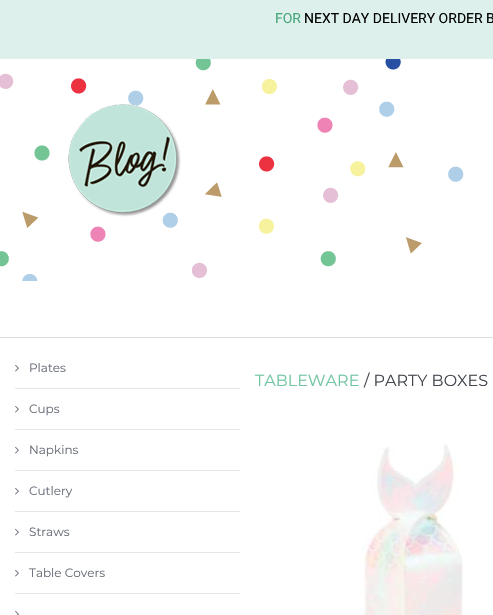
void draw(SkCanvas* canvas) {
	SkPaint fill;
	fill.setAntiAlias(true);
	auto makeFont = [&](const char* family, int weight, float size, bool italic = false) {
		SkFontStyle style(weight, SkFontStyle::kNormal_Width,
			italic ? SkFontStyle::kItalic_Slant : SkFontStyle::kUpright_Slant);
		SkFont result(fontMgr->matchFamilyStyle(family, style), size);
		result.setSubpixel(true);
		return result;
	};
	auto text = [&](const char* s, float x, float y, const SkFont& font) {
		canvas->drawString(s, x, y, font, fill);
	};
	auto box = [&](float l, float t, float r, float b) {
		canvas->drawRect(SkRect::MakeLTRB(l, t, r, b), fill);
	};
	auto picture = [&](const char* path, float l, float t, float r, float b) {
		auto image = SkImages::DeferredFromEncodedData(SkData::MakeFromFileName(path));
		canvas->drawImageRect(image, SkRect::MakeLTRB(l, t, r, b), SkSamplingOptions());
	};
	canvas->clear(0xFFFFFFFF);
	fill.setColor(0xFFDDF0EB);
	box(0, 0, 493, 59);
	picture("image0.png", 0, 59, 464, 281);
	picture("image1.png", 68, 104, 181, 217);
	fill.setColor(0xFFDDDDDD);
	box(0, 337, 493, 338);
	fill.setColor(0xFFE6E6E6);
	box(15, 388, 240, 389);
	picture("image2.png", 15, 364, 19, 372);
	box(15, 429, 240, 430);
	picture("image2.png", 15, 405, 19, 413);
	box(15, 470, 240, 471);
	picture("image2.png", 15, 446, 19, 454);
	box(15, 511, 240, 512);
	picture("image2.png", 15, 487, 19, 495);
	box(15, 552, 240, 553);
	picture("image2.png", 15, 528, 19, 536);
	box(15, 593, 240, 594);
	picture("image2.png", 15, 569, 19, 577);
	picture("image3.png", 15, 610, 19, 615);
	picture("image4.png", 363, 444, 463, 615);
	auto font1 = makeFont("Roboto", 400, 14);
	fill.setColor(0xFF46A57A);
	text("FOR", 275, 23, font1);
	fill.setColor(0xFF000000);
	text("NEXT DAY DELIVERY ORDER B", 304, 23, font1);
	auto font2 = makeFont("Montserrat", 100, 12);
	fill.setColor(0xFF666B76);
	text("Plates", 29, 372, font2);
	text("Cups", 29, 413, font2);
	text("Napkins", 29, 454, font2);
	text("Cutlery", 29, 495, font2);
	text("Straws", 29, 536, font2);
	text("Table Covers", 29, 577, font2);
	auto font3 = makeFont("Montserrat", 100, 16);
	fill.setColor(0xFF72C6A2);
	text("TABLEWARE", 255, 386, font3);
	fill.setColor(0xFF42464D);
	text("/ PARTY BOXES", 364, 386, font3);
}
